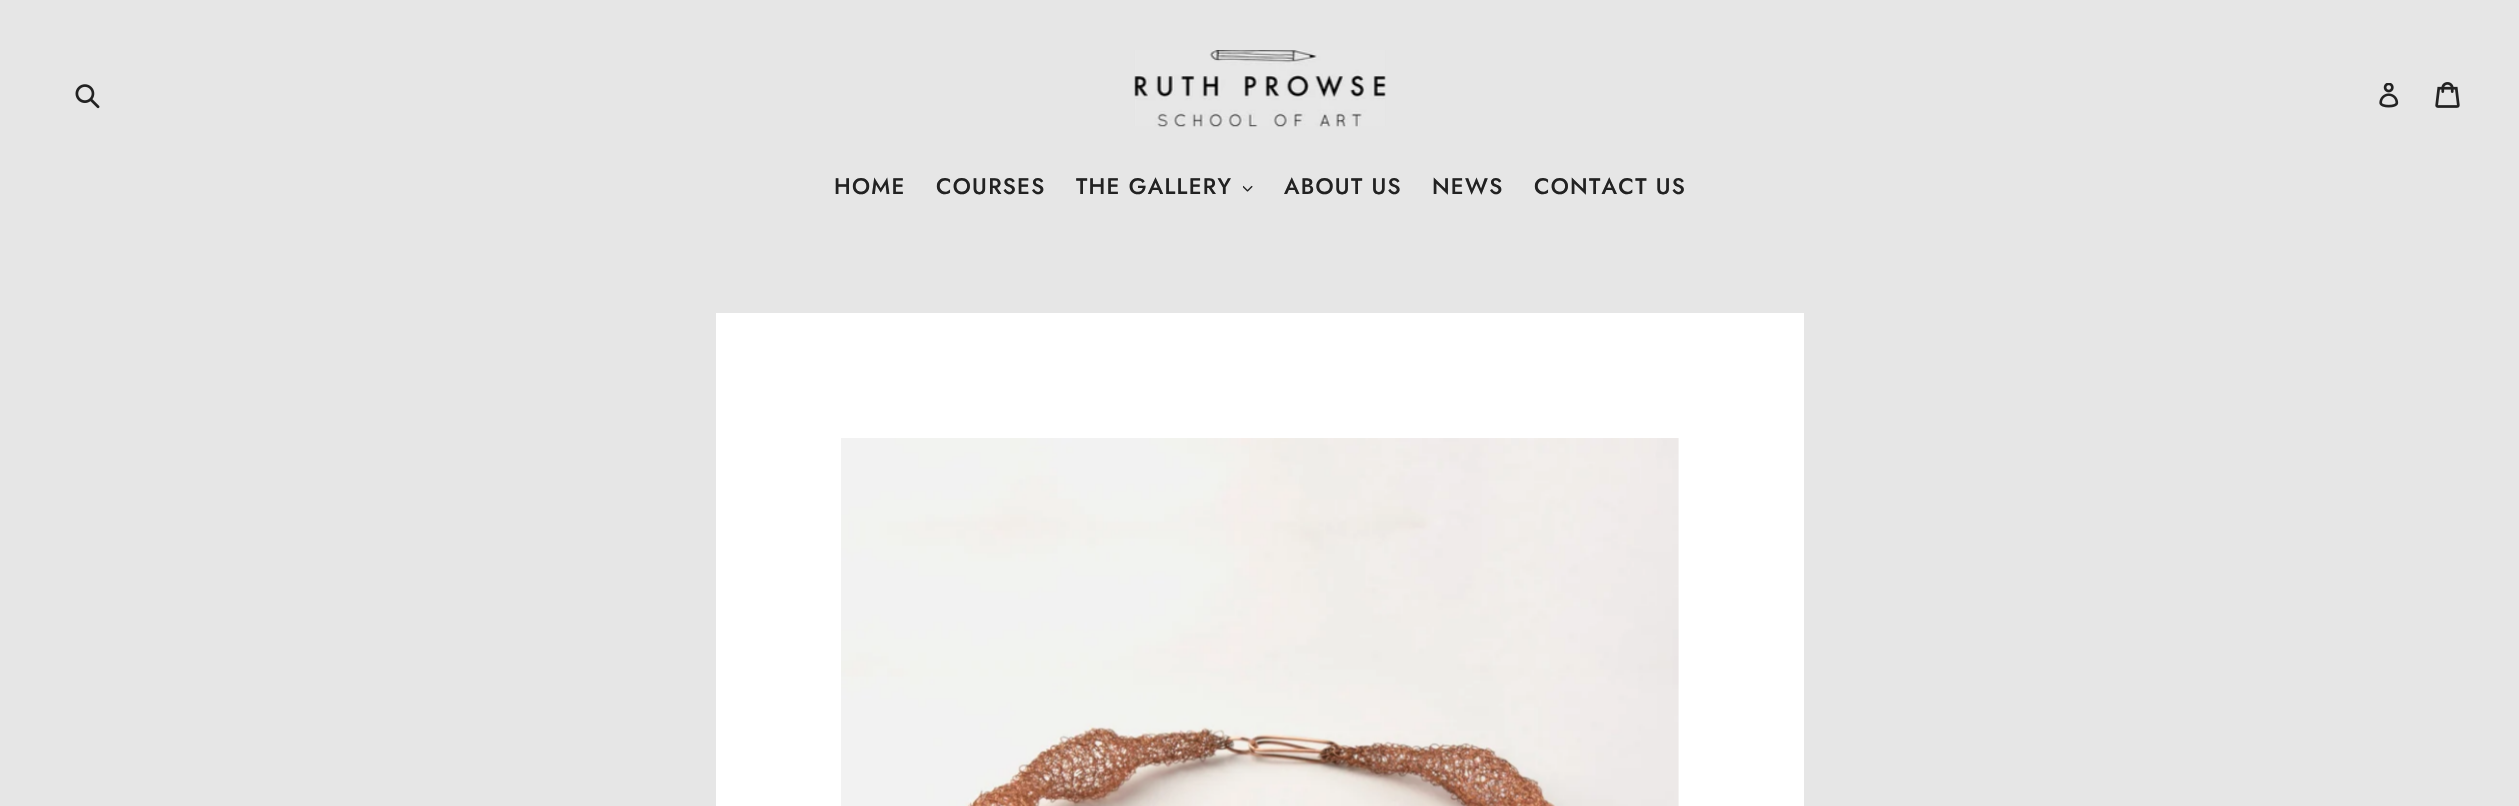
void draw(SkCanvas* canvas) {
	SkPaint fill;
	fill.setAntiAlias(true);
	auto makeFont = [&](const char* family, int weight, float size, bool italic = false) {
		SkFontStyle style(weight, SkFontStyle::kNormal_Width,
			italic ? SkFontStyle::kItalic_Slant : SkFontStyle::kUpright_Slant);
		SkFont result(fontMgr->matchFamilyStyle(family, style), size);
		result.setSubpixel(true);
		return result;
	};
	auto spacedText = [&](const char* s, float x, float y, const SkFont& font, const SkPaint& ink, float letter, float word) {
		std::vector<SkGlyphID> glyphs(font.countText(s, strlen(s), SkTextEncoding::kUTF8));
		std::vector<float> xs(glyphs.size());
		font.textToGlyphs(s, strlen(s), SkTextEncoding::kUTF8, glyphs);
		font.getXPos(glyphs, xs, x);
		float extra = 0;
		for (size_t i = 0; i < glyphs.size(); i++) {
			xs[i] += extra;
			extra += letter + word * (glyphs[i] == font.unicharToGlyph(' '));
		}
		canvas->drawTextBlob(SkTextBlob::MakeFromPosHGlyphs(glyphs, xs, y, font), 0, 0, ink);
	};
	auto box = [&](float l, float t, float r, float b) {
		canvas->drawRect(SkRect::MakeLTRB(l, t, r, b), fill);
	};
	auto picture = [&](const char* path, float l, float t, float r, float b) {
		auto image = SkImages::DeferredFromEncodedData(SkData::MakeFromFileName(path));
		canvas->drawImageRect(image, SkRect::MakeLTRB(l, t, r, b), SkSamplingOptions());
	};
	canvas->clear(0xFFE6E6E6);
	picture("image0.png", 75, 84, 100, 109);
	picture("image1.png", 1134, 50, 1386, 127);
	picture("image2.png", 2379, 83, 2399, 108);
	picture("image3.png", 2435, 82, 2460, 108);
	picture("image4.png", 1243, 185, 1253, 192);
	fill.setColor(0xFFFFFFFF);
	box(716, 313, 1804, 806);
	picture("image5.png", 841, 438, 1679, 806);
	auto font1 = makeFont("Jost", 500, 22.5f);
	fill.setColor(0xFF222222);
	spacedText("HOME", 834, 194, font1, fill, 1.25f, 0);
	spacedText("COURSES", 936, 194, font1, fill, 1.25f, 0);
	spacedText("THE GALLERY", 1076, 194, font1, fill, 1.25f, 0);
	spacedText("ABOUT US", 1284, 194, font1, fill, 1.25f, 0);
	spacedText("NEWS", 1432, 194, font1, fill, 1.25f, 0);
	spacedText("CONTACT US", 1534, 194, font1, fill, 1.25f, 0);
}
